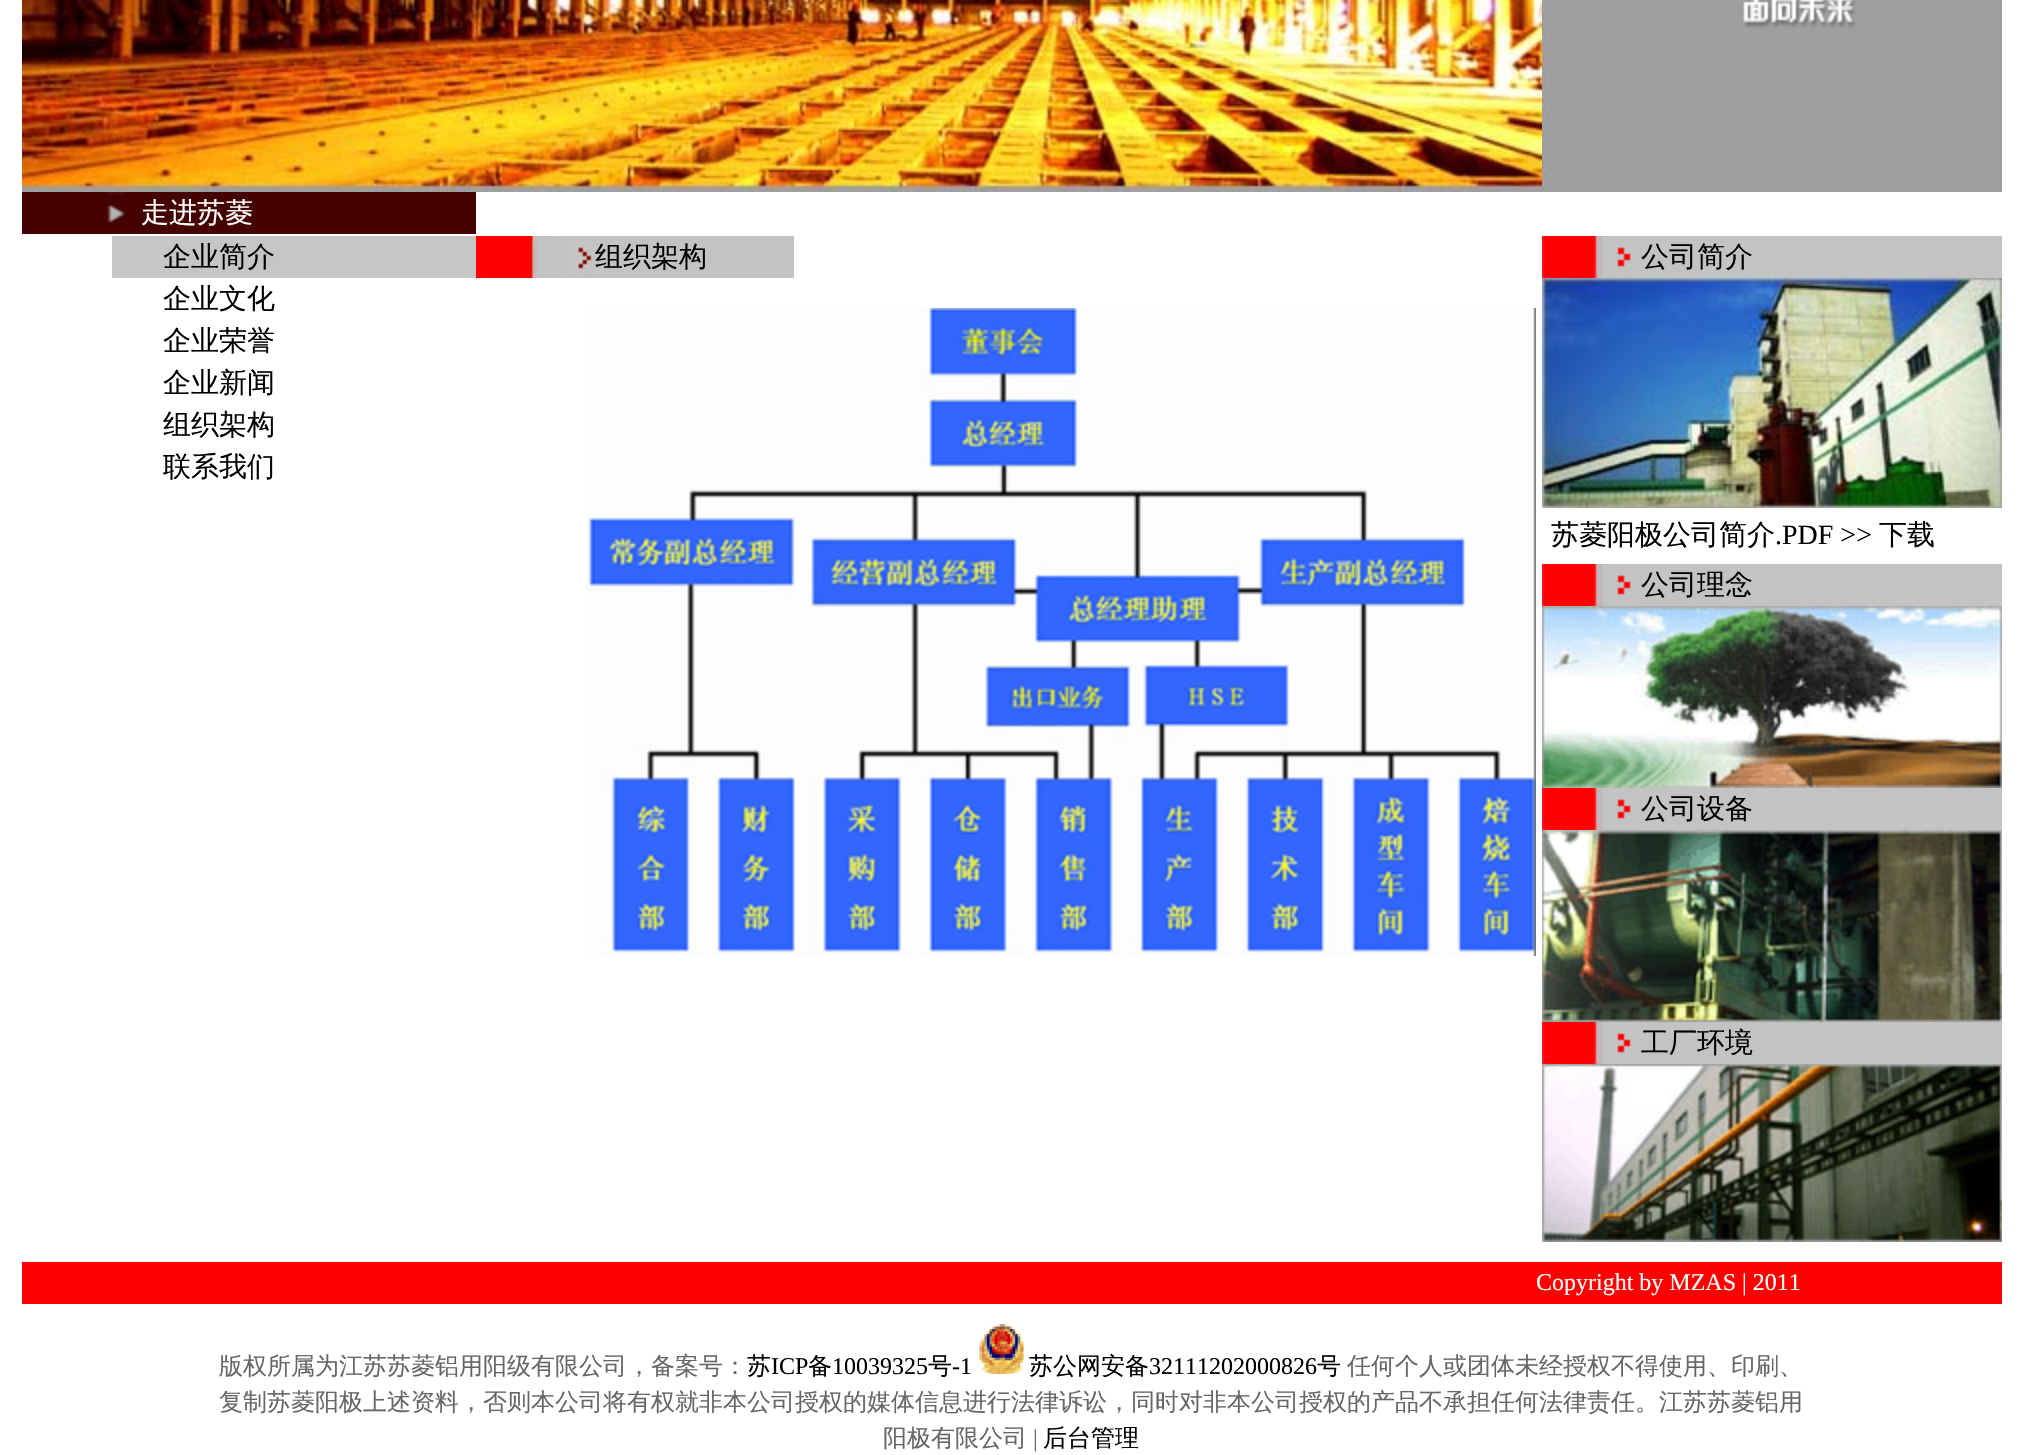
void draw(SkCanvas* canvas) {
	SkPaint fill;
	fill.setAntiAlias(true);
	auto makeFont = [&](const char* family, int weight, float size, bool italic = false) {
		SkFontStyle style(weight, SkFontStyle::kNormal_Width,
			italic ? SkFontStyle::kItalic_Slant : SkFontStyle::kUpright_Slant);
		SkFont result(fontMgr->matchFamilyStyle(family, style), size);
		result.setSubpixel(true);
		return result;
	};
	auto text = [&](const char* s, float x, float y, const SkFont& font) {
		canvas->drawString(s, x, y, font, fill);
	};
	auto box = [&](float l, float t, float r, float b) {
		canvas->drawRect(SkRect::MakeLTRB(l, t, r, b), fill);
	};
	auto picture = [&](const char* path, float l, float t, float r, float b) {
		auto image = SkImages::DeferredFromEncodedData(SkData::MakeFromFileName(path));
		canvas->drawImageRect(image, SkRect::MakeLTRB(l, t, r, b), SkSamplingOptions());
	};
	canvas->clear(0xFFFFFFFF);
	picture("image0.png", 22, 0, 1542, 192);
	picture("image1.png", 1542, 0, 2002, 192);
	picture("image2.png", 22, 192, 476, 234);
	fill.setColor(0xFFC6C6C6);
	box(112, 236, 476, 278);
	picture("image3.png", 476, 236, 794, 278);
	picture("image4.png", 586, 308, 1536, 956);
	picture("image5.png", 1542, 236, 2002, 278);
	picture("image6.png", 1542, 278, 2002, 508);
	picture("image5.png", 1542, 564, 2002, 606);
	picture("image7.png", 1542, 606, 2002, 788);
	picture("image5.png", 1542, 788, 2002, 830);
	picture("image8.png", 1542, 830, 2002, 1022);
	picture("image5.png", 1542, 1022, 2002, 1064);
	picture("image9.png", 1542, 1064, 2002, 1242);
	fill.setColor(0xFFFE0000);
	box(22, 1262, 2002, 1304);
	picture("image10.png", 979, 1324, 1024, 1374);
	auto font1 = makeFont("WenQuanYi Zen Hei", 500, 28);
	fill.setColor(0xFFFFFFFF);
	text("走进苏菱", 141, 222, font1);
	fill.setColor(0xFF000000);
	text("企业简介", 163, 266, font1);
	text("企业文化", 163, 308, font1);
	text("企业荣誉", 163, 350, font1);
	text("企业新闻", 163, 392, font1);
	text("组织架构", 163, 434, font1);
	text("联系我们", 163, 476, font1);
	text("组织架构", 595, 266, font1);
	text("公司简介", 1641, 266, font1);
	text("苏菱阳极公司简介", 1551, 544, font1);
	auto font2 = makeFont("Liberation Serif", 400, 28);
	text(".PDF >>", 1775, 544, font2);
	text("下载", 1879, 544, font1);
	text("公司理念", 1641, 594, font1);
	text("公司设备", 1641, 818, font1);
	text("工厂环境", 1641, 1052, font1);
	auto font3 = makeFont("Liberation Serif", 400, 24);
	fill.setColor(0xFFFFFFFF);
	text("Copyright by MZAS | 2011", 1536, 1290, font3);
	auto font4 = makeFont("WenQuanYi Zen Hei", 500, 24);
	fill.setColor(0xFF666666);
	text("版权所属为江苏苏菱铝用阳级有限公司，备案号：", 219, 1374, font4);
	fill.setColor(0xFF000000);
	text("苏", 747, 1374, font4);
	text("ICP", 771, 1374, font3);
	text("备", 808, 1374, font4);
	text("10039325", 832, 1374, font3);
	text("号", 928, 1374, font4);
	text("-1", 952, 1374, font3);
	text("苏公网安备", 1029, 1374, font4);
	text("32111202000826", 1149, 1374, font3);
	text("号", 1317, 1374, font4);
	fill.setColor(0xFF666666);
	text("任何个人或团体未经授权不得使用、印刷、", 1347, 1374, font4);
	text("复制苏菱阳极上述资料，否则本公司将有权就非本公司授权的媒体信息进行法律诉讼，同时对非本公司授权的产品不承担任何法律责任。江苏苏菱铝用", 219, 1410, font4);
	text("阳极有限公司", 883, 1446, font4);
	text("|", 1033, 1446, font3);
	fill.setColor(0xFF000000);
	text("后台管理", 1043, 1446, font4);
}
